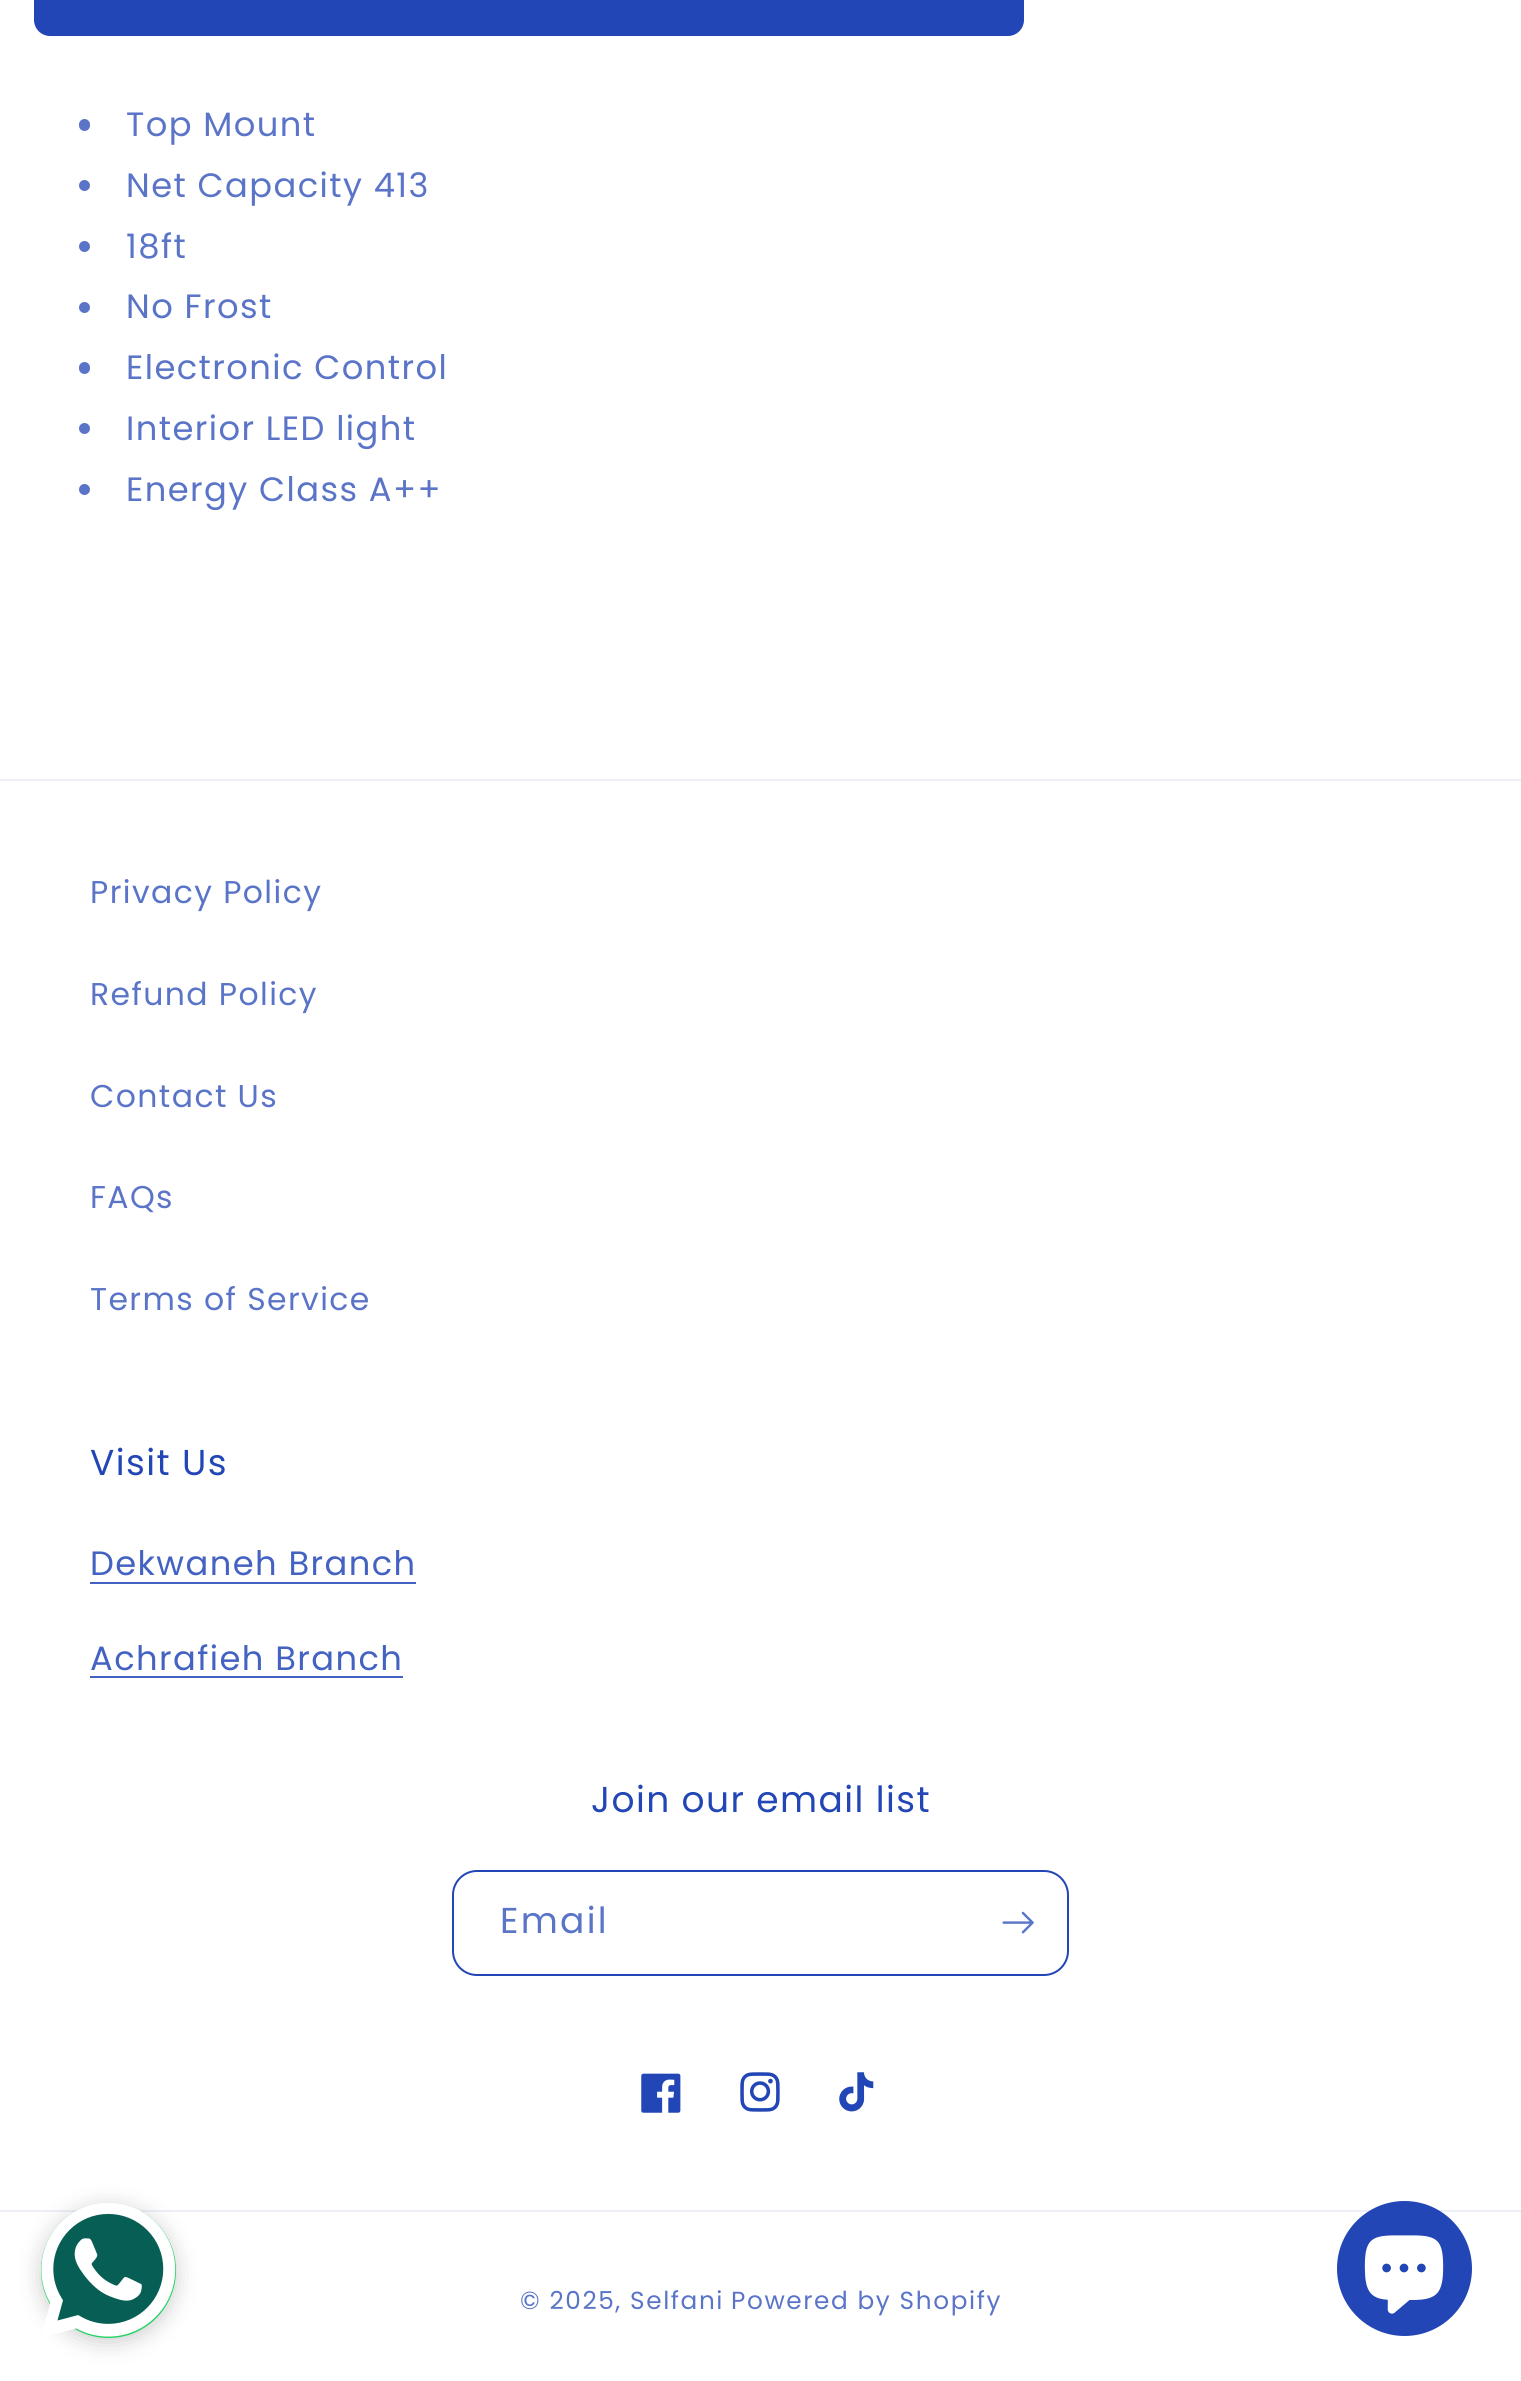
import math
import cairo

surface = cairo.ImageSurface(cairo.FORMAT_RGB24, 1521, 2381)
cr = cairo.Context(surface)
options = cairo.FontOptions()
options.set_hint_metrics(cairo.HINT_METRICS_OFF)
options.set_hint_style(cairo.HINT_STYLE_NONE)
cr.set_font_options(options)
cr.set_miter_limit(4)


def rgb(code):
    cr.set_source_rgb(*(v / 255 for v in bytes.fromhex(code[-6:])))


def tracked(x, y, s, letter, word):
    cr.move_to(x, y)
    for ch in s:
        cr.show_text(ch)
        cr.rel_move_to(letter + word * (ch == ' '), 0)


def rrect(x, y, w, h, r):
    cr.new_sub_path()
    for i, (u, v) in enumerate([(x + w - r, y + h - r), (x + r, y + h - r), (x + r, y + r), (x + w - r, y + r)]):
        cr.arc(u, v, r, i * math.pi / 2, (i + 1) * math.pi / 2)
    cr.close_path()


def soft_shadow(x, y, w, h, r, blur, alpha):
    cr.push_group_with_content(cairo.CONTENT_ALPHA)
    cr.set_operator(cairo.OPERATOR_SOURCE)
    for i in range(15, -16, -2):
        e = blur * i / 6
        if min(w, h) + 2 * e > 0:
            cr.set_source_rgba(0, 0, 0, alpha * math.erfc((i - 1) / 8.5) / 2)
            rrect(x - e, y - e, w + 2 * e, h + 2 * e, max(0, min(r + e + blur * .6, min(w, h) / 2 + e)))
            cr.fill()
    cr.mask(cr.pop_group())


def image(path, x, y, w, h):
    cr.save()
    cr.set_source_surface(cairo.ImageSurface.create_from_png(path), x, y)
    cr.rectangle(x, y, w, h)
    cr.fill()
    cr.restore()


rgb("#ffffff")
cr.paint()
rgb("#2346b6")
rrect(35, -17, 988, 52, 15)
cr.fill_preserve()
cr.stroke()
rgb("#5a74c8")
rrect(79, 119, 11, 12, 5.5)
cr.fill()
cr.arc(84.5, 185.5, 5.5, 0, 2 * math.pi)
cr.fill()
cr.arc(84.5, 246.5, 5.5, 0, 2 * math.pi)
cr.fill()
cr.arc(84.5, 307.5, 5.5, 0, 2 * math.pi)
cr.fill()
rrect(79, 362, 11, 12, 5.5)
cr.fill()
cr.arc(84.5, 428.5, 5.5, 0, 2 * math.pi)
cr.fill()
cr.arc(84.5, 489.5, 5.5, 0, 2 * math.pi)
cr.fill()
for x, y, w, h, color in [
    (0, 779, 1521, 2, "#edf0f9"),
    (90, 1582, 326, 2, "#4462c1"),
    (90, 1676, 313, 2, "#4462c1"),
]:
    rgb(color)
    cr.rectangle(x, y, w, h)
    cr.fill()
rrect(453, 1871, 615, 104, 24)
rgb("#2346b6")
cr.stroke()
image("img/1.png", 1002, 1911, 32, 23)
image("img/2.png", 641, 2073, 40, 40)
image("img/3.png", 740, 2072, 40, 40)
image("img/4.png", 839, 2072, 35, 40)
rgb("#edf0f9")
cr.rectangle(0, 2210, 1521, 2)
cr.fill()
rgb("#000000")
soft_shadow(41, 2207, 135, 135, 67.5, 11, 0.2)
rgb("#25d366")
cr.arc(108.5, 2270.5, 67.5, 0, 2 * math.pi)
cr.fill()
image("img/5.png", 41, 2203, 135, 134)
rgb("#2346b6")
cr.arc(1404.5, 2268.5, 67.5, 0, 2 * math.pi)
cr.fill()
image("img/6.png", 1364, 2235, 80, 79)
cr.select_font_face("Poppins")
cr.set_font_size(33.75)
rgb("#5a74c8")
for x, y, s in [
    (126, 136, "Top Mount"),
    (126, 197, "Net Capacity 413"),
    (126, 258, "18ft"),
    (126, 318, "No Frost"),
    (126, 379, "Electronic Control"),
    (126, 440, "Interior LED light"),
    (126, 501, "Energy Class A++"),
]:
    tracked(x, y, s, 1.4, 0)
cr.set_font_size(31.5)
for x, y, s in [
    (90, 903, "Privacy Policy"),
    (90, 1005, "Refund Policy"),
    (90, 1107, "Contact Us"),
    (90, 1208, "FAQs"),
    (90, 1310, "Terms of Service"),
]:
    tracked(x, y, s, 1.4, 0)
cr.set_font_size(36)
rgb("#2346b6")
tracked(90, 1475, "Visit Us", 1.4, 0)
cr.set_font_size(33.75)
rgb("#4462c1")
tracked(90, 1575, "Dekwaneh Branch", 1.4, 0)
tracked(90, 1670, "Achrafieh Branch", 1.4, 0)
cr.set_font_size(36)
rgb("#2346b6")
tracked(591, 1812, "Join our email list", 1.4, 0)
rgb("#5a74c8")
tracked(500, 1933, "Email", 2.25, 0)
cr.set_font_size(24.75)
tracked(520, 2309, "© 2025, Selfani", 1.6, 0)
tracked(731, 2309, "Powered by Shopify", 1.6, 0)
surface.write_to_png("page.png")
